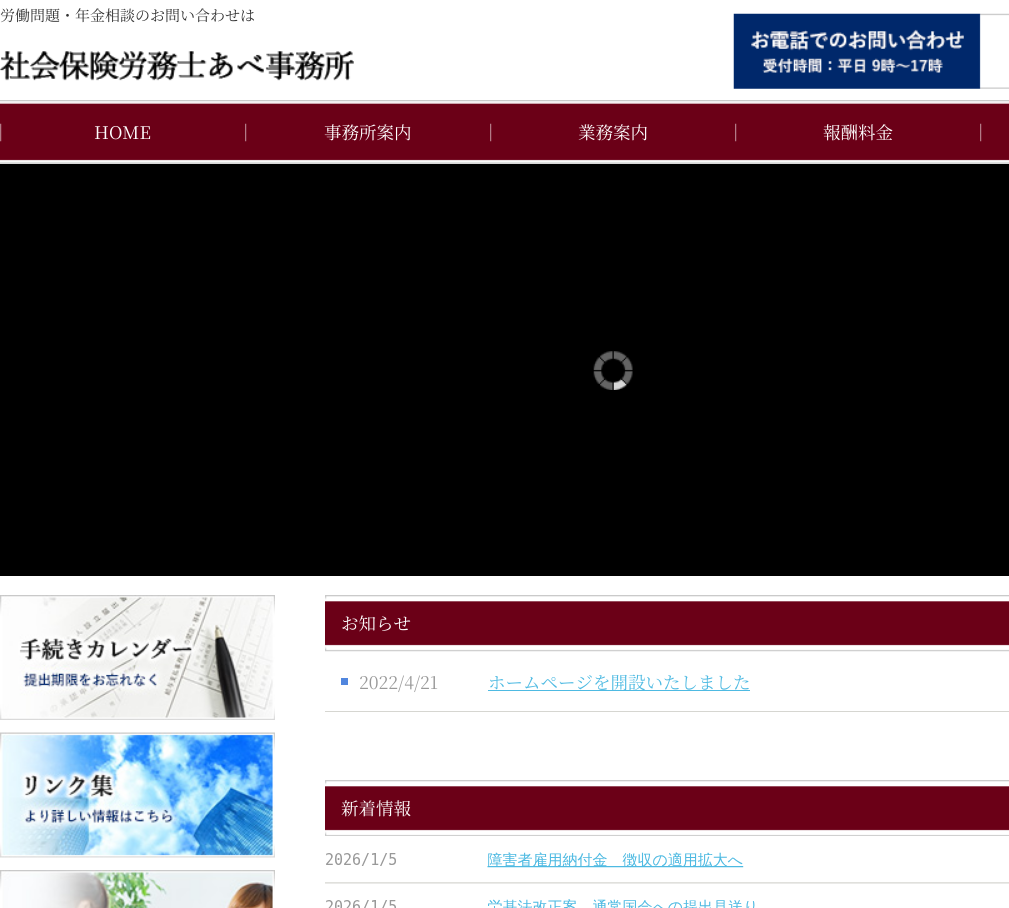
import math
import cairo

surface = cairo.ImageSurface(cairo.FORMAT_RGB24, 1009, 908)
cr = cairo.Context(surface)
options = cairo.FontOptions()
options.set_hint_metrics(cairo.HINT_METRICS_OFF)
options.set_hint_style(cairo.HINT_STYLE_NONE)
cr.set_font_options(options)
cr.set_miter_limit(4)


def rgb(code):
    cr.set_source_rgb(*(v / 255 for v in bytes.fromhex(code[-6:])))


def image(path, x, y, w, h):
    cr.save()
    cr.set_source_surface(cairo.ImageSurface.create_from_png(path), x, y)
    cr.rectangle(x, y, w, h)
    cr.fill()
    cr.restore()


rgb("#ffffff")
cr.paint()
image("img/1.png", 0, 100, 1009, 64)
image("img/2.png", 733, 13, 276, 76)
image("img/3.png", 0, 51, 354, 30)
image("img/4.png", 0, 123, 2, 19)
image("img/4.png", 245, 123, 2, 19)
image("img/4.png", 490, 123, 2, 19)
image("img/4.png", 735, 123, 2, 19)
image("img/4.png", 980, 123, 2, 19)
rgb("#000000")
cr.rectangle(0, 164, 1009, 412)
cr.fill()
image("img/5.png", 593, 351, 40, 39)
image("img/6.png", 0, 595, 275, 125)
image("img/7.png", 0, 732, 275, 126)
image("img/8.png", 0, 870, 275, 38)
image("img/9.png", 325, 595, 684, 57)
for x, y, w, h, color in [
    (341, 678, 7, 7, "#5186de"),
    (325, 711, 684, 1, "#d6d6d1"),
    (488, 690, 262, 1, "#4ebae2"),
]:
    rgb(color)
    cr.rectangle(x, y, w, h)
    cr.fill()
image("img/10.png", 325, 780, 684, 56)
image("img/11.png", 325, 836, 684, 72)
cr.select_font_face("Noto Serif JP")
cr.set_font_size(15)
rgb("#333333")
cr.move_to(0, 21)
cr.show_text("労働問題・年金相談のお問い合わせは")
cr.set_font_size(17.5)
rgb("#ffffff")
for x, y, s in [
    (94, 139, "HOME"),
    (324, 139, "事務所案内"),
    (578, 139, "業務案内"),
    (823, 139, "報酬料金"),
    (341, 630, "お知らせ"),
]:
    cr.move_to(x, y)
    cr.show_text(s)
rgb("#999999")
cr.move_to(359, 689)
cr.show_text("2022/4/21")
rgb("#4ebae2")
cr.move_to(488, 689)
cr.show_text("ホームページを開設いたしました")
rgb("#ffffff")
cr.move_to(341, 815)
cr.show_text("新着情報")
surface.write_to_png("page.png")
